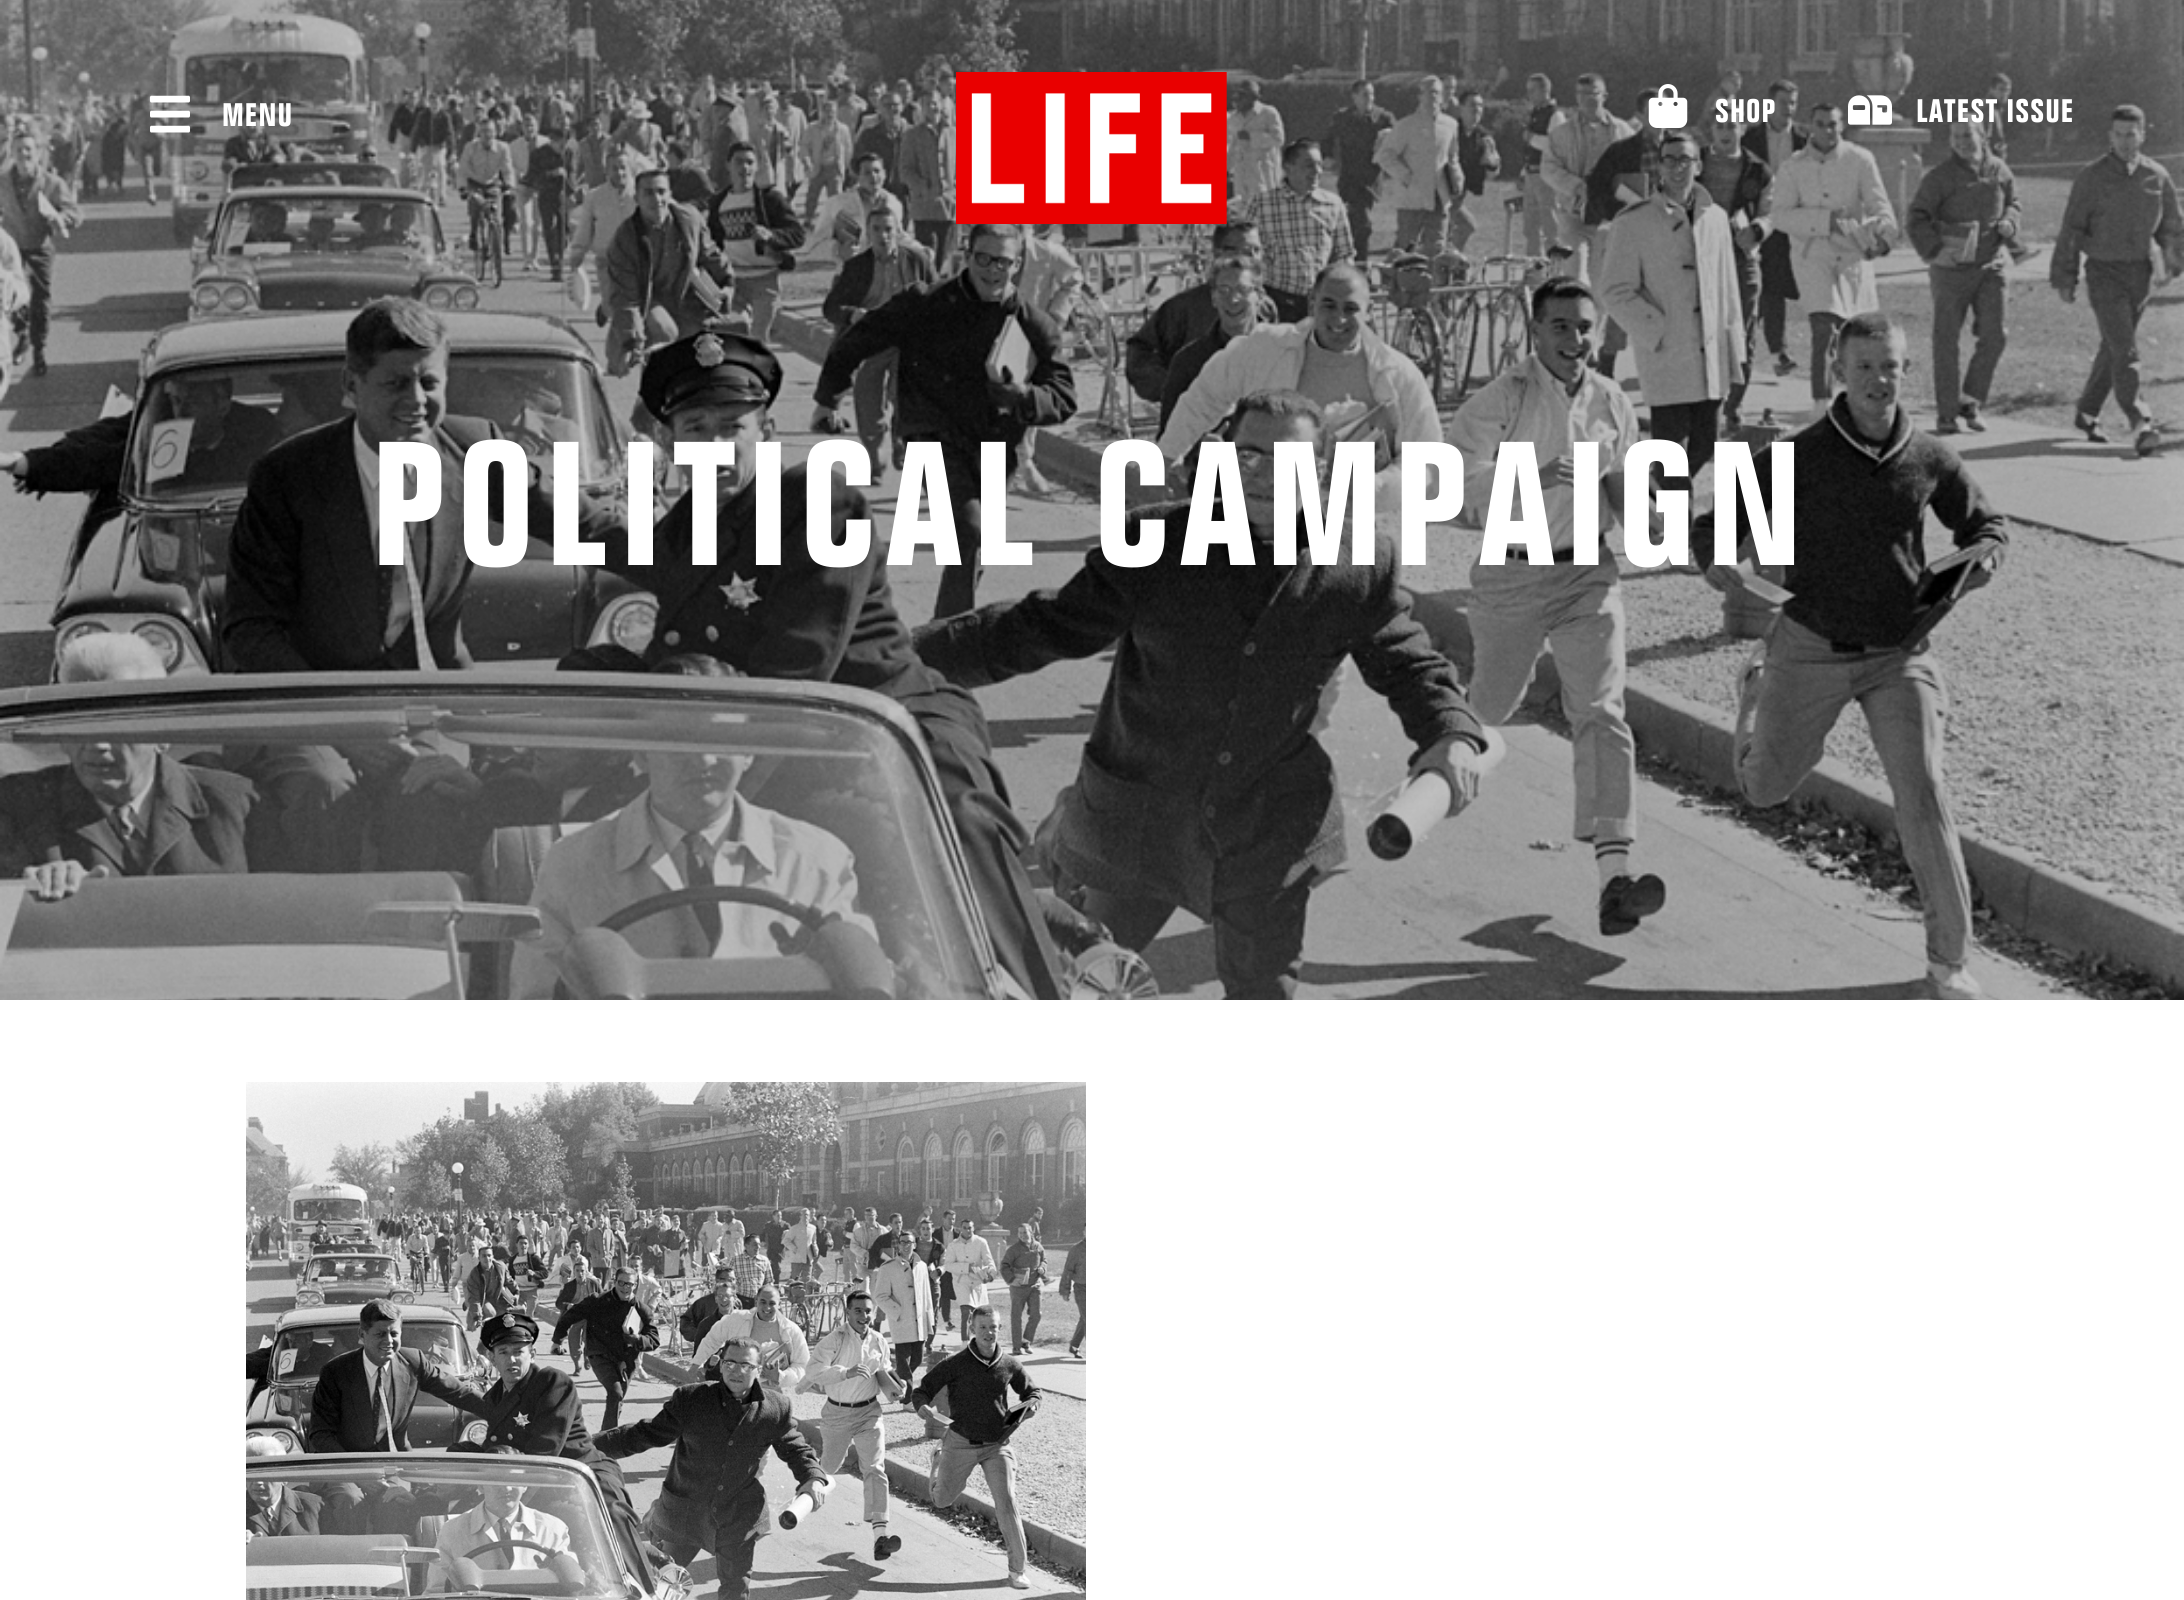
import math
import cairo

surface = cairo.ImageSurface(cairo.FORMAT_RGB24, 2184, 1600)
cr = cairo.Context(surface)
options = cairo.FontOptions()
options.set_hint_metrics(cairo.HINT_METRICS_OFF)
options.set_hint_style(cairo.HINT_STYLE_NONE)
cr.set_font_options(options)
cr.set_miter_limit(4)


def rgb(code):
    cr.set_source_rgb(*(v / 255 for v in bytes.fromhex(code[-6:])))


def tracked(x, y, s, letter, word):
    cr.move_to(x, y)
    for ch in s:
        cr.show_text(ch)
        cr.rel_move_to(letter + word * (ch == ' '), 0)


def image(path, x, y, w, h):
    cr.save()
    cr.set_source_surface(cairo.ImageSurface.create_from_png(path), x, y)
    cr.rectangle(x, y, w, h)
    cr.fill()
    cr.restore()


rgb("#ffffff")
cr.paint()
image("img/5.png", 0, 0, 2184, 1000)
image("img/1.png", 150, 95, 40, 38)
rgb("#e90000")
cr.rectangle(956, 72, 15, 152)
cr.fill()
image("img/2.png", 971, 72, 256, 152)
image("img/3.png", 1648, 84, 40, 44)
image("img/4.png", 1848, 95, 44, 30)
image("img/6.png", 246, 1082, 840, 518)
cr.select_font_face("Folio", cairo.FONT_SLANT_NORMAL, cairo.FONT_WEIGHT_BOLD)
cr.set_font_size(32)
rgb("#ffffff")
for x, y, s in [
    (222, 126, "MENU"),
    (1715, 122, "SHOP"),
    (1916, 122, "LATEST ISSUE"),
]:
    tracked(x, y, s, 1, 0)
cr.set_font_size(172.75)
tracked(371, 565, "POLITICAL CAMPAIGN", 10, 0)
surface.write_to_png("page.png")
